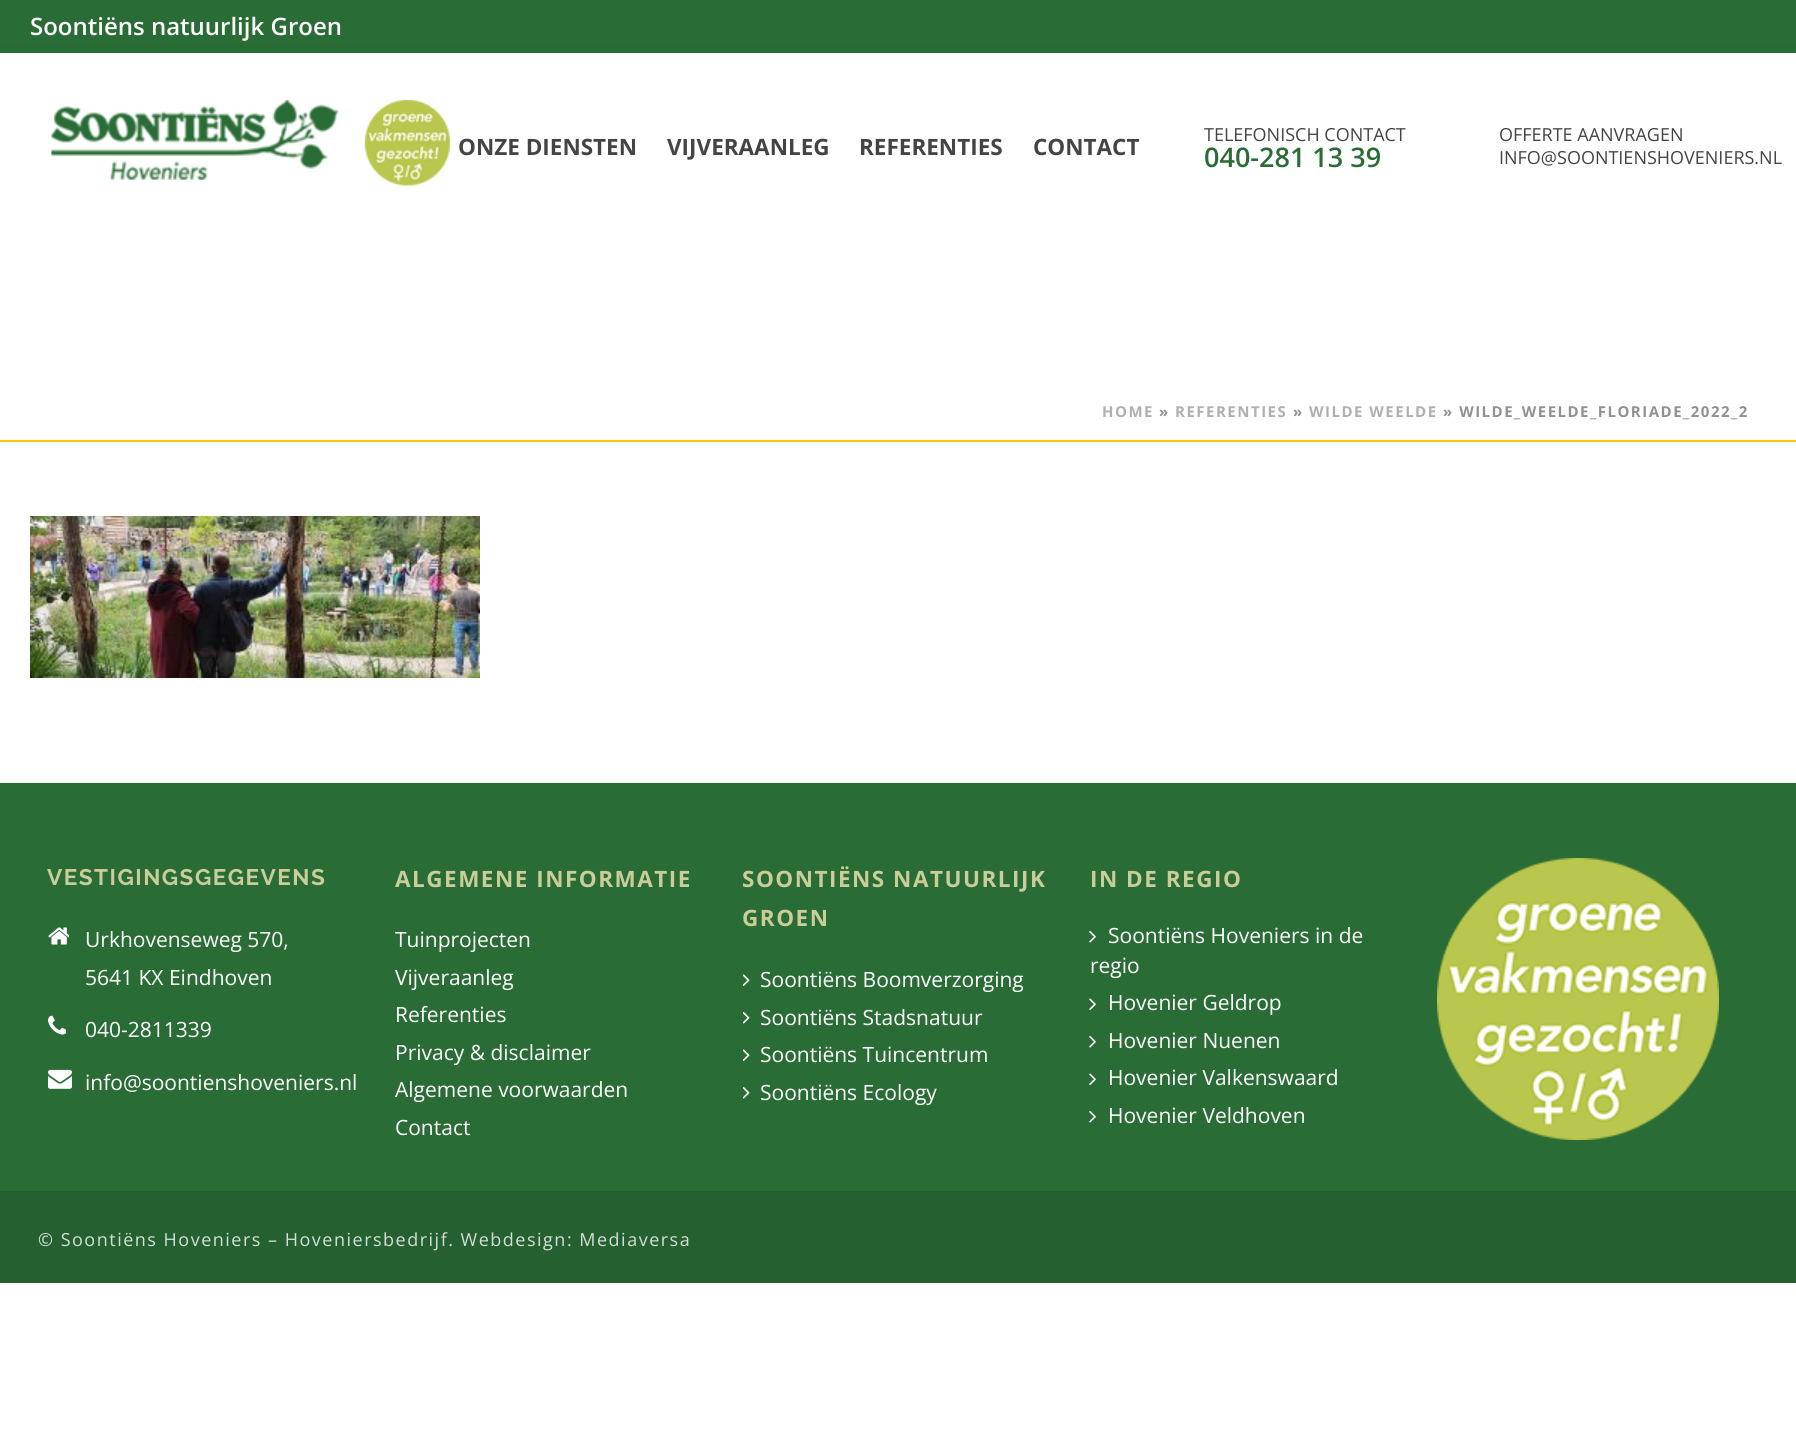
import math
import cairo

surface = cairo.ImageSurface(cairo.FORMAT_RGB24, 1796, 1454)
cr = cairo.Context(surface)
options = cairo.FontOptions()
options.set_hint_metrics(cairo.HINT_METRICS_OFF)
options.set_hint_style(cairo.HINT_STYLE_NONE)
cr.set_font_options(options)
cr.set_miter_limit(4)


def rgb(code):
    cr.set_source_rgb(*(v / 255 for v in bytes.fromhex(code[-6:])))


def tracked(x, y, s, letter, word):
    cr.move_to(x, y)
    for ch in s:
        cr.show_text(ch)
        cr.rel_move_to(letter + word * (ch == ' '), 0)


def image(path, x, y, w, h):
    cr.save()
    cr.set_source_surface(cairo.ImageSurface.create_from_png(path), x, y)
    cr.rectangle(x, y, w, h)
    cr.fill()
    cr.restore()


rgb("#ffffff")
cr.paint()
for x, y, w, h, color in [
    (0, 440, 1796, 2, "#fdc502"),
    (0, 0, 1796, 45, "#296c35"),
    (0, 45, 1796, 8, "#276c35"),
]:
    rgb(color)
    cr.rectangle(x, y, w, h)
    cr.fill()
image("img/1.png", 51, 99, 399, 87)
image("img/2.png", 30, 516, 450, 162)
rgb("#296c35")
cr.rectangle(0, 783, 1796, 408)
cr.fill()
image("img/3.png", 48, 927, 21, 18)
image("img/4.png", 48, 1015, 18, 20)
image("img/5.png", 48, 1069, 24, 20)
image("img/6.png", 743, 974, 7, 12)
image("img/7.png", 743, 1012, 7, 12)
image("img/6.png", 743, 1049, 7, 12)
image("img/7.png", 743, 1087, 7, 12)
image("img/8.png", 1089, 931, 7, 12)
image("img/9.png", 1089, 998, 7, 12)
image("img/8.png", 1089, 1036, 7, 12)
image("img/9.png", 1089, 1073, 7, 12)
image("img/8.png", 1089, 1111, 7, 12)
image("img/10.png", 1437, 858, 282, 282)
rgb("#256130")
cr.rectangle(0, 1191, 1796, 92)
cr.fill()
cr.select_font_face("Open Sans SemiBold")
cr.set_font_size(24)
rgb("#ffffff")
cr.move_to(30, 35)
cr.show_text("Soontiëns natuurlijk Groen")
cr.select_font_face("Open Sans", cairo.FONT_SLANT_NORMAL, cairo.FONT_WEIGHT_BOLD)
cr.set_font_size(22.5)
rgb("#444444")
for x, y, s in [
    (458, 155, "ONZE DIENSTEN"),
    (667, 155, "VIJVERAANLEG"),
    (859, 155, "REFERENTIES"),
    (1033, 155, "CONTACT"),
]:
    cr.move_to(x, y)
    cr.show_text(s)
cr.select_font_face("Open Sans")
cr.set_font_size(18)
cr.move_to(1204, 141)
cr.show_text("TELEFONISCH CONTACT")
cr.select_font_face("Open Sans SemiBold")
cr.set_font_size(27)
rgb("#296c35")
cr.move_to(1204, 167)
cr.show_text("040-281 13 39")
cr.select_font_face("Open Sans")
cr.set_font_size(18)
rgb("#444444")
cr.move_to(1499, 141)
cr.show_text("OFFERTE AANVRAGEN")
cr.move_to(1499, 164)
cr.show_text("INFO@SOONTIENSHOVENIERS.NL")
cr.select_font_face("Open Sans", cairo.FONT_SLANT_NORMAL, cairo.FONT_WEIGHT_BOLD)
cr.set_font_size(15)
rgb("#afafaf")
tracked(1102, 417, "HOME", 1.5, 0)
rgb("#919191")
tracked(1159, 417, "»", 1.5, 0)
rgb("#afafaf")
tracked(1175, 417, "REFERENTIES", 1.5, 0)
rgb("#919191")
tracked(1293, 417, "»", 1.5, 0)
rgb("#afafaf")
tracked(1309, 417, "WILDE WEELDE", 1.5, 0)
rgb("#919191")
tracked(1443, 417, "» WILDE_WEELDE_FLORIADE_2022_2", 1.5, 0)
cr.select_font_face("Raleway", cairo.FONT_SLANT_NORMAL, cairo.FONT_WEIGHT_BOLD)
cr.set_font_size(22.5)
rgb("#cacd98")
tracked(47, 885, "VESTIGINGSGEGEVENS", 1.5, 0)
cr.select_font_face("Open Sans")
cr.set_font_size(21)
rgb("#ffffff")
for x, y, s in [
    (85, 947, "Urkhovenseweg 570,"),
    (85, 985, "5641 KX Eindhoven"),
    (85, 1037, "040-2811339"),
    (85, 1090, "info@soontienshoveniers.nl"),
]:
    cr.move_to(x, y)
    cr.show_text(s)
cr.select_font_face("Open Sans", cairo.FONT_SLANT_NORMAL, cairo.FONT_WEIGHT_BOLD)
cr.set_font_size(22.5)
rgb("#cacd98")
tracked(395, 887, "ALGEMENE INFORMATIE", 1.5, 0)
cr.select_font_face("Open Sans")
cr.set_font_size(21)
rgb("#ffffff")
for x, y, s in [
    (395, 947, "Tuinprojecten"),
    (395, 985, "Vijveraanleg"),
    (395, 1022, "Referenties"),
    (395, 1060, "Privacy & disclaimer"),
    (395, 1097, "Algemene voorwaarden"),
    (395, 1135, "Contact"),
]:
    cr.move_to(x, y)
    cr.show_text(s)
cr.select_font_face("Open Sans", cairo.FONT_SLANT_NORMAL, cairo.FONT_WEIGHT_BOLD)
cr.set_font_size(22.5)
rgb("#cacd98")
tracked(742, 887, "SOONTIËNS NATUURLIJK", 1.5, 0)
tracked(742, 926, "GROEN", 1.5, 0)
cr.select_font_face("Open Sans")
cr.set_font_size(21)
rgb("#ffffff")
for x, y, s in [
    (760, 987, "Soontiëns Boomverzorging"),
    (760, 1025, "Soontiëns Stadsnatuur"),
    (760, 1062, "Soontiëns Tuincentrum"),
    (760, 1100, "Soontiëns Ecology"),
]:
    cr.move_to(x, y)
    cr.show_text(s)
cr.select_font_face("Open Sans", cairo.FONT_SLANT_NORMAL, cairo.FONT_WEIGHT_BOLD)
cr.set_font_size(22.5)
rgb("#cacd98")
tracked(1090, 887, "IN DE REGIO", 1.5, 0)
cr.select_font_face("Open Sans")
cr.set_font_size(21)
rgb("#ffffff")
for x, y, s in [
    (1108, 943, "Soontiëns Hoveniers in de"),
    (1090, 973, "regio"),
    (1108, 1010, "Hovenier Geldrop"),
    (1108, 1048, "Hovenier Nuenen"),
    (1108, 1085, "Hovenier Valkenswaard"),
    (1108, 1123, "Hovenier Veldhoven"),
]:
    cr.move_to(x, y)
    cr.show_text(s)
cr.set_font_size(18)
rgb("#d3dfd6")
tracked(38, 1246, "© Soontiëns Hoveniers – Hoveniersbedrijf. Webdesign: Mediaversa", 1.5, 0)
surface.write_to_png("page.png")
